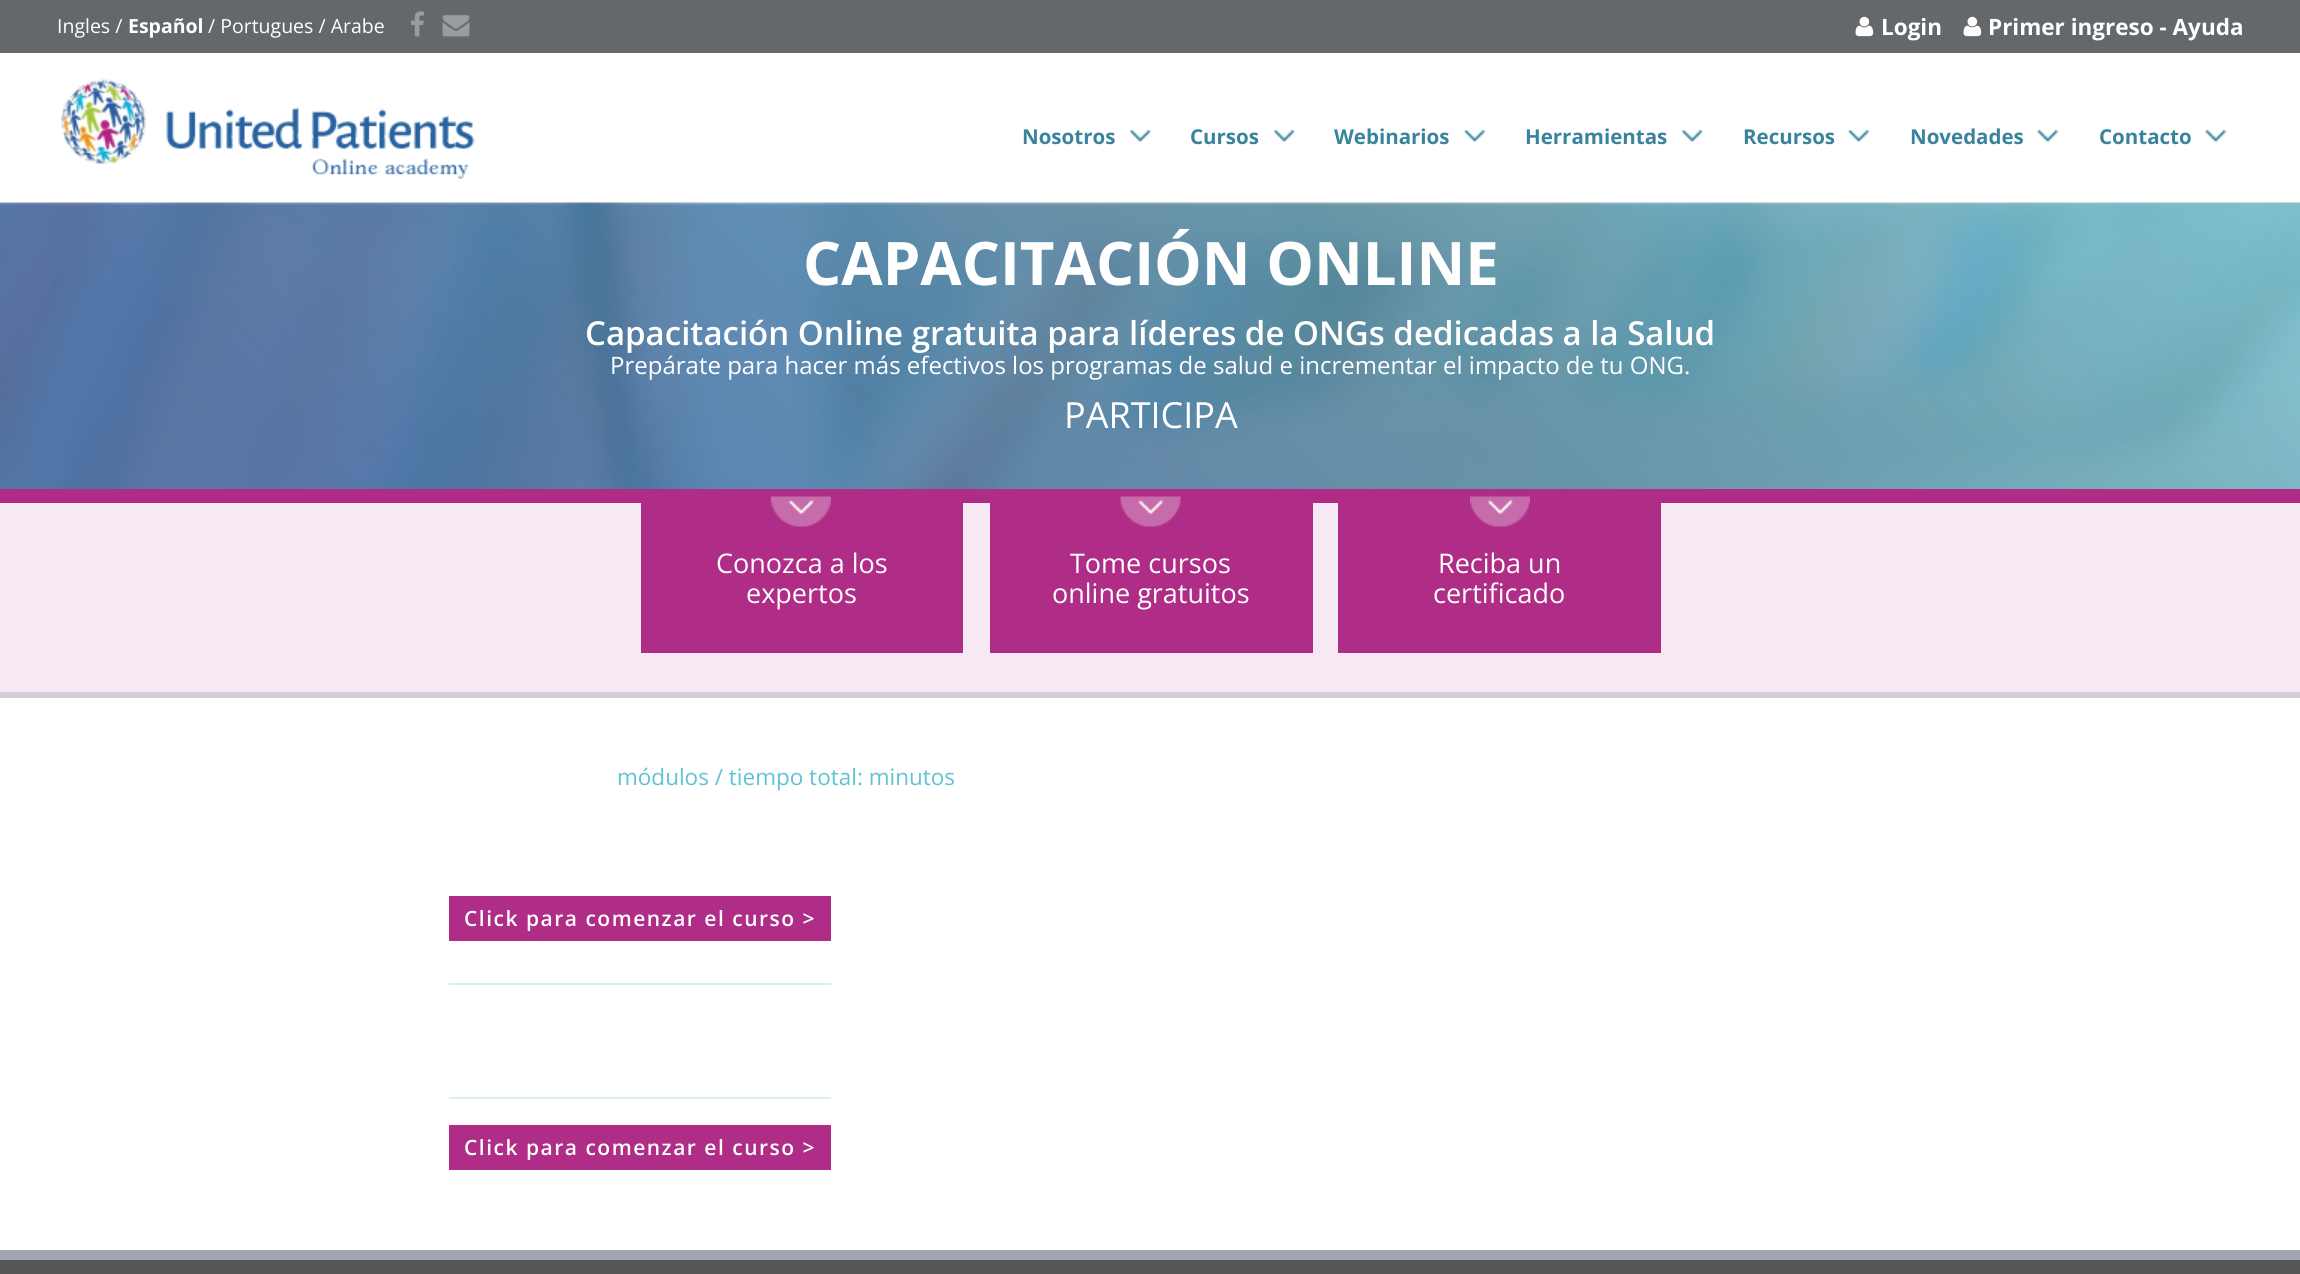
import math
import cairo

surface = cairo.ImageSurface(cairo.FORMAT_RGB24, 2300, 1274)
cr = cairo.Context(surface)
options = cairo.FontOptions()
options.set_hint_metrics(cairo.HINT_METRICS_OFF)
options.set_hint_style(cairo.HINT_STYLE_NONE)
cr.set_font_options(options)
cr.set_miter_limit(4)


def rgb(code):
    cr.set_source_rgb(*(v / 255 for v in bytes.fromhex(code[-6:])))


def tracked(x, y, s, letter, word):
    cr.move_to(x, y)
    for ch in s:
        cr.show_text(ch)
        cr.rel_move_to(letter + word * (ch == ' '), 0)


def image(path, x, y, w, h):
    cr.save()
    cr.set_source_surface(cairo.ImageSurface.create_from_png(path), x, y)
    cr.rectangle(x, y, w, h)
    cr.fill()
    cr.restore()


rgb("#ffffff")
cr.paint()
rgb("#64686b")
cr.rectangle(0, 0, 2300, 53)
cr.fill()
image("img/1.png", 411, 11, 13, 26)
image("img/2.png", 442, 15, 28, 22)
image("img/3.png", 1855, 16, 19, 21)
image("img/3.png", 1963, 16, 19, 21)
image("img/4.png", 61, 79, 414, 100)
image("img/5.png", 1129, 129, 22, 14)
image("img/6.png", 1273, 129, 22, 14)
image("img/7.png", 1464, 129, 22, 14)
image("img/8.png", 1681, 129, 22, 14)
image("img/7.png", 1848, 129, 22, 14)
image("img/9.png", 2037, 129, 22, 14)
image("img/10.png", 2205, 129, 22, 14)
image("img/11.png", 0, 202, 2300, 287)
for x, y, w, h, color in [
    (0, 503, 2300, 189, "#f7e9f3"),
    (0, 489, 2300, 14, "#af2d87"),
    (641, 503, 322, 150, "#af2d87"),
]:
    rgb(color)
    cr.rectangle(x, y, w, h)
    cr.fill()
image("img/12.png", 771, 496, 60, 31)
cr.rectangle(990, 503, 323, 150)
cr.fill()
image("img/13.png", 1120, 496, 61, 31)
cr.rectangle(1338, 503, 323, 150)
cr.fill()
image("img/14.png", 1470, 496, 60, 31)
for x, y, w, h, color in [
    (0, 692, 2300, 6, "#d1d0d7"),
    (449, 896, 382, 45, "#af2d87"),
    (449, 983, 382, 2, "#d7f0f5"),
    (449, 1097, 382, 2, "#d7f0f5"),
    (449, 1125, 382, 45, "#af2d87"),
    (0, 1260, 2300, 14, "#575656"),
    (0, 1250, 2300, 10, "#a3a4b1"),
]:
    rgb(color)
    cr.rectangle(x, y, w, h)
    cr.fill()
cr.select_font_face("Open Sans")
cr.set_font_size(19.5)
rgb("#ffffff")
cr.move_to(57, 33)
cr.show_text("Ingles /")
cr.select_font_face("Open Sans", cairo.FONT_SLANT_NORMAL, cairo.FONT_WEIGHT_BOLD)
cr.move_to(128, 33)
cr.show_text("Español")
cr.select_font_face("Open Sans")
cr.move_to(208, 33)
cr.show_text("/ Portugues / Arabe")
cr.select_font_face("Open Sans", cairo.FONT_SLANT_NORMAL, cairo.FONT_WEIGHT_BOLD)
cr.set_font_size(22.5)
cr.move_to(1881, 35)
cr.show_text("Login")
cr.move_to(1988, 35)
cr.show_text("Primer ingreso - Ayuda")
cr.set_font_size(20.5)
rgb("#39839d")
for x, y, s in [
    (1022, 144, "Nosotros"),
    (1190, 144, "Cursos"),
    (1334, 144, "Webinarios"),
    (1525, 144, "Herramientas"),
    (1743, 144, "Recursos"),
    (1910, 144, "Novedades"),
    (2099, 144, "Contacto"),
]:
    cr.move_to(x, y)
    cr.show_text(s)
cr.set_font_size(60)
rgb("#ffffff")
cr.move_to(803, 285)
cr.show_text("CAPACITACIÓN ONLINE")
cr.select_font_face("Open Sans SemiBold")
cr.set_font_size(33)
cr.move_to(585, 345)
cr.show_text("Capacitación Online gratuita para líderes de ONGs dedicadas a la Salud")
cr.select_font_face("Open Sans")
cr.set_font_size(24)
cr.move_to(610, 374)
cr.show_text("Prepárate para hacer más efectivos los programas de salud e incrementar el impacto de tu ONG.")
cr.set_font_size(36)
cr.move_to(1064, 428)
cr.show_text("PARTICIPA")
cr.set_font_size(27)
for x, y, s in [
    (716, 573, "Conozca a los"),
    (746, 603, "expertos"),
    (1070, 573, "Tome cursos"),
    (1052, 603, "online gratuitos"),
    (1438, 573, "Reciba un"),
    (1433, 603, "certificado"),
]:
    cr.move_to(x, y)
    cr.show_text(s)
cr.set_font_size(22.5)
rgb("#61c2d6")
cr.move_to(617, 785)
cr.show_text("módulos / tiempo total: minutos")
cr.select_font_face("Open Sans SemiBold")
cr.set_font_size(21)
rgb("#ffffff")
tracked(464, 926, "Click para comenzar el curso >", 1.5, 0)
tracked(464, 1155, "Click para comenzar el curso >", 1.5, 0)
surface.write_to_png("page.png")
